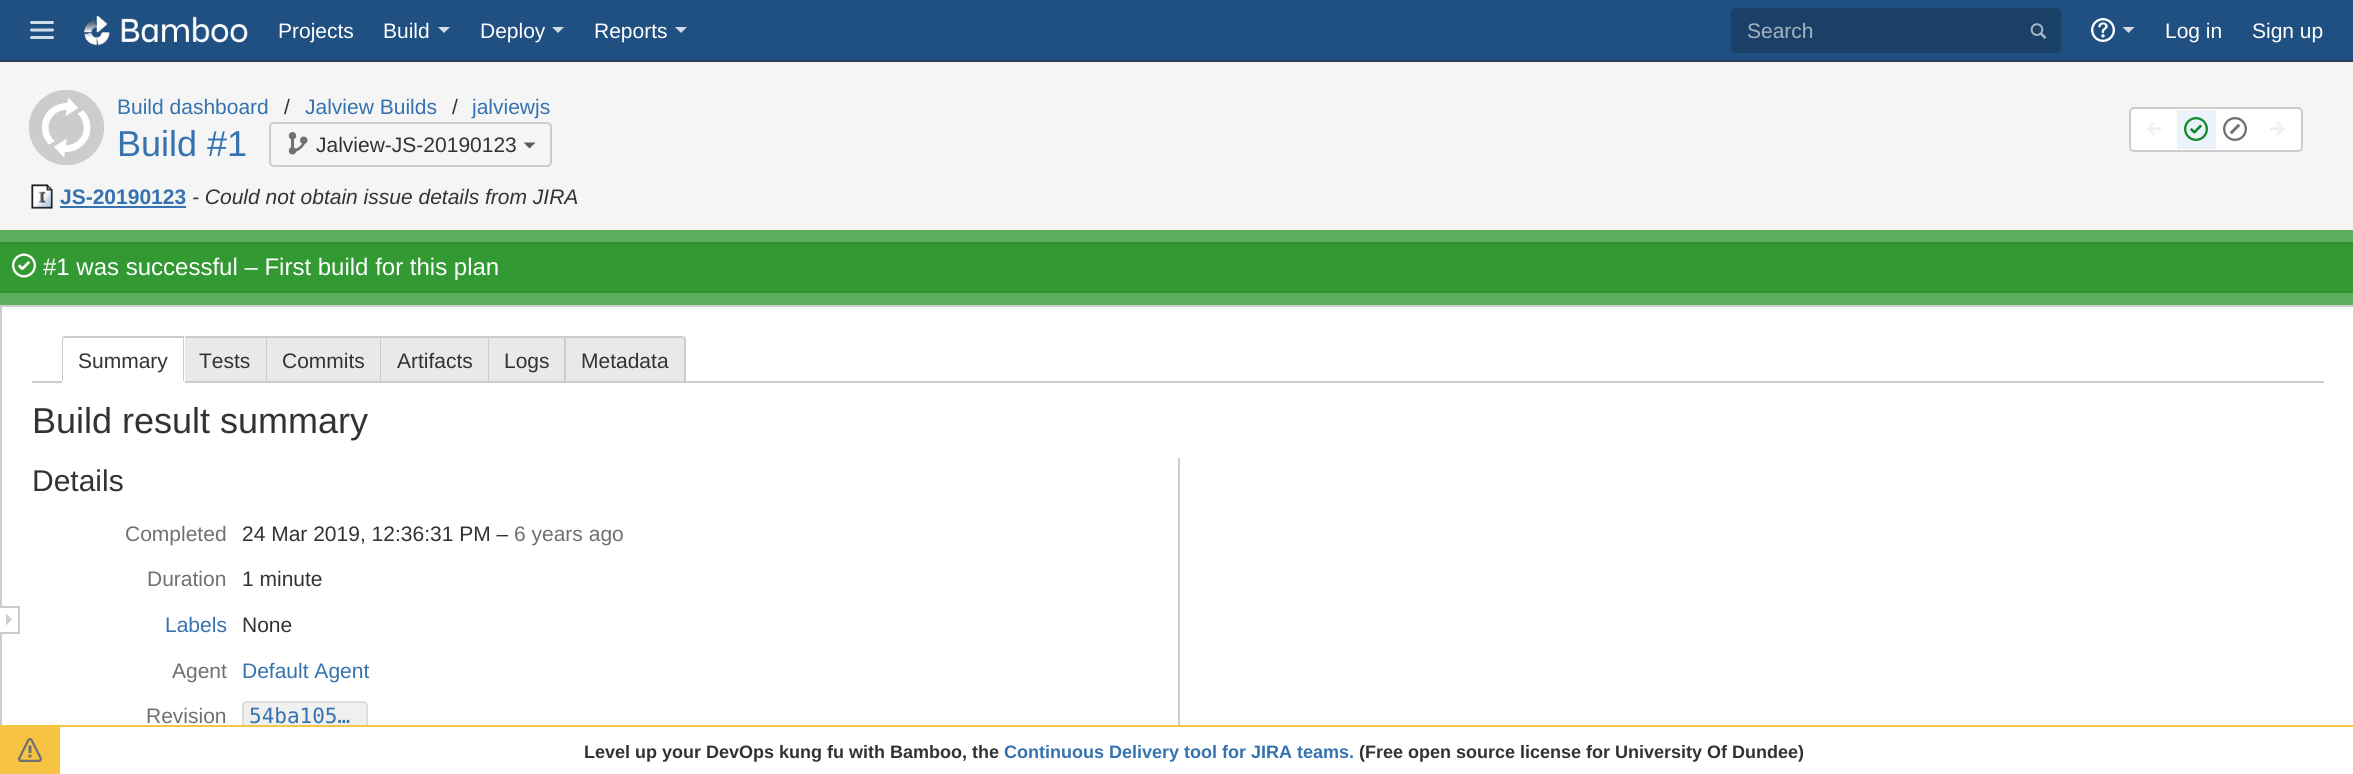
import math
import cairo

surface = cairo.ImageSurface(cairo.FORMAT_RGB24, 2353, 774)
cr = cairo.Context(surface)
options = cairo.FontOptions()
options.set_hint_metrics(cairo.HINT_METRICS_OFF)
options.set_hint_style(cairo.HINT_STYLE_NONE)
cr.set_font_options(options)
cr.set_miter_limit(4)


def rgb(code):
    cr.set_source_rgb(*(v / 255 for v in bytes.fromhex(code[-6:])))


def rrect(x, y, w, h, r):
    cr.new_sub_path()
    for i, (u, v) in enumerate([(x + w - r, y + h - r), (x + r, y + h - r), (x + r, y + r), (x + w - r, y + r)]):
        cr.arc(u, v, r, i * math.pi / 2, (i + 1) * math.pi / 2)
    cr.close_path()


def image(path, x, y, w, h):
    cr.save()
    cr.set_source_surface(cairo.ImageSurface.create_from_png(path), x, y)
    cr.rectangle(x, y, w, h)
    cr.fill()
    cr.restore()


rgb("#f5f5f5")
cr.paint()
rgb("#205081")
cr.rectangle(0, 0, 2353, 60)
cr.fill()
rgb("#2e3d54")
cr.rectangle(0, 60, 2353, 2)
cr.fill()
image("img/1.png", 30, 21, 24, 18)
image("img/2.png", 84, 15, 164, 30)
rgb("#d2dce6")
cr.new_path()
cr.move_to(438, 27)
cr.line_to(450, 27)
cr.line_to(444, 33)
cr.close_path()
cr.fill()
cr.new_path()
cr.move_to(552, 27)
cr.line_to(564, 27)
cr.line_to(558, 33)
cr.close_path()
cr.fill()
cr.new_path()
cr.move_to(675, 27)
cr.line_to(687, 27)
cr.line_to(681, 33)
cr.close_path()
cr.fill()
rgb("#1a4067")
rrect(1731, 8, 330, 45, 5)
cr.fill()
image("img/3.png", 2030, 23, 17, 16)
image("img/4.png", 2091, 18, 24, 24)
rgb("#d2dce6")
cr.new_path()
cr.move_to(2122.5, 27)
cr.line_to(2134.5, 27)
cr.line_to(2128.5, 33)
cr.close_path()
cr.fill()
cr.arc(66.5, 127.5, 36.5, 0, 2 * math.pi)
rgb("#cccccc")
cr.stroke()
image("img/5.png", 31, 92, 71, 71)
cr.arc(66.5, 127.5, 36.5, 0, 2 * math.pi)
cr.stroke()
rrect(270, 123, 281, 43, 4)
cr.stroke()
image("img/6.png", 288, 132, 20, 23)
rgb("#5a5a5a")
cr.new_path()
cr.move_to(523.5, 142.5)
cr.line_to(535.5, 142.5)
cr.line_to(529.5, 148.5)
cr.close_path()
cr.fill()
rgb("#ffffff")
rrect(2130, 108, 172, 43, 4)
cr.fill_preserve()
rgb("#cccccc")
cr.stroke()
image("img/7.png", 2147, 122, 15, 14)
rgb("#ebf2f9")
cr.rectangle(2177, 110, 39, 39)
cr.fill()
image("img/8.png", 2184, 117, 24, 24)
image("img/9.png", 2223, 117, 24, 24)
image("img/10.png", 2270, 121, 15, 15)
image("img/11.png", 31, 184, 22, 25)
for x, y, w, h, color in [
    (60, 206, 126, 2, "#3572b0"),
    (0, 230, 2353, 12, "#5cad5c"),
    (0, 244, 2353, 47, "#339933"),
    (0, 242, 2353, 2, "#309130"),
    (0, 291, 2353, 2, "#309130"),
]:
    rgb(color)
    cr.rectangle(x, y, w, h)
    cr.fill()
image("img/12.png", 12, 253, 24, 25)
for x, y, w, h, color in [
    (0, 293, 2353, 12, "#5cad5c"),
    (2, 307, 2351, 418, "#ffffff"),
    (0, 305, 2353, 2, "#cccccc"),
    (0, 306, 2, 419, "#cccccc"),
    (0, 608, 2, 24, "#ffffff"),
    (0, 606, 20, 2, "#cccccc"),
    (18, 606, 2, 27, "#cccccc"),
    (0, 632, 20, 2, "#cccccc"),
]:
    rgb(color)
    cr.rectangle(x, y, w, h)
    cr.fill()
cr.new_path()
cr.move_to(6, 625.5)
cr.line_to(6, 613.5)
cr.line_to(12, 619.5)
cr.close_path()
cr.fill()
for x, y, w, h, color in [
    (62, 336, 4, 4, "#eeeeee"),
    (32, 381, 2292, 2, "#cccccc"),
    (62, 381, 123, 2, "#ffffff"),
]:
    rgb(color)
    cr.rectangle(x, y, w, h)
    cr.fill()
cr.new_path()
cr.move_to(67, 336)
cr.line_to(185, 336)
cr.line_to(185, 381)
cr.line_to(62, 381)
cr.line_to(62, 341)
cr.curve_to(62, 338, 64, 336, 67, 336)
cr.close_path()
cr.fill()
rgb("#cccccc")
cr.set_fill_rule(cairo.FILL_RULE_EVEN_ODD)
cr.new_path()
cr.move_to(66, 336)
cr.line_to(184, 336)
cr.line_to(184, 381)
cr.line_to(62, 381)
cr.line_to(62, 340)
cr.curve_to(62, 338, 64, 336, 66, 336)
cr.close_path()
cr.move_to(66, 338)
cr.line_to(183, 338)
cr.line_to(183, 381)
cr.line_to(63, 381)
cr.line_to(63, 340)
cr.curve_to(63, 339, 64, 338, 66, 338)
cr.close_path()
cr.fill()
for x, y, w, h, color in [
    (185, 338, 81, 43, "#e9e9e9"),
    (185, 336, 381, 2, "#cccccc"),
    (266, 336, 1, 45, "#cccccc"),
    (267, 338, 113, 43, "#e9e9e9"),
    (380, 336, 1, 45, "#cccccc"),
    (381, 338, 107, 43, "#e9e9e9"),
    (488, 336, 1, 45, "#cccccc"),
    (489, 338, 75, 43, "#e9e9e9"),
    (564, 336, 2, 45, "#cccccc"),
    (681, 336, 5, 4, "#eeeeee"),
]:
    rgb(color)
    cr.rectangle(x, y, w, h)
    cr.fill()
rgb("#e9e9e9")
cr.new_path()
cr.move_to(566, 336)
cr.line_to(681, 336)
cr.curve_to(684, 336, 686, 338, 686, 341)
cr.line_to(686, 381)
cr.line_to(566, 381)
cr.close_path()
cr.fill()
rgb("#cccccc")
cr.new_path()
cr.move_to(566, 336)
cr.line_to(681, 336)
cr.curve_to(683, 336, 686, 338, 686, 340)
cr.line_to(686, 381)
cr.line_to(566, 381)
cr.close_path()
cr.move_to(566, 338)
cr.line_to(681, 338)
cr.curve_to(683, 338, 684, 339, 684, 340)
cr.line_to(684, 381)
cr.line_to(566, 381)
cr.close_path()
cr.fill()
rgb("#f0f0f0")
rrect(243, 702, 124, 28, 4)
cr.fill_preserve()
rgb("#dddddd")
cr.stroke()
for x, y, w, h, color in [
    (1178, 458, 2, 274, "#cccccc"),
    (60, 727, 2293, 47, "#ffffff"),
    (0, 725, 2353, 2, "#f6c342"),
    (0, 727, 60, 47, "#f6c342"),
]:
    rgb(color)
    cr.rectangle(x, y, w, h)
    cr.fill()
image("img/13.png", 18, 738, 24, 24)
cr.select_font_face("Liberation Sans")
cr.set_font_size(21)
rgb("#ffffff")
for x, y, s in [
    (278, 38, "Projects"),
    (383, 38, "Build"),
    (480, 38, "Deploy"),
    (594, 38, "Reports"),
]:
    cr.move_to(x, y)
    cr.show_text(s)
rgb("#a3b3c2")
cr.move_to(1747, 38)
cr.show_text("Search")
rgb("#ffffff")
cr.move_to(2165, 38)
cr.show_text("Log in")
cr.move_to(2252, 38)
cr.show_text("Sign up")
rgb("#3572b0")
cr.move_to(117, 114)
cr.show_text("Build dashboard")
rgb("#333333")
cr.move_to(284, 114)
cr.show_text("/")
rgb("#3572b0")
cr.move_to(305, 114)
cr.show_text("Jalview Builds")
rgb("#333333")
cr.move_to(452, 114)
cr.show_text("/")
rgb("#3572b0")
cr.move_to(472, 114)
cr.show_text("jalviewjs")
cr.set_font_size(36)
cr.move_to(117, 156)
cr.show_text("Build #1")
cr.set_font_size(21)
rgb("#333333")
cr.move_to(316, 152)
cr.show_text("Jalview-JS-20190123")
cr.select_font_face("Liberation Sans", cairo.FONT_SLANT_NORMAL, cairo.FONT_WEIGHT_BOLD)
rgb("#3572b0")
cr.move_to(60, 204)
cr.show_text("JS-20190123")
cr.select_font_face("Liberation Sans", cairo.FONT_SLANT_ITALIC)
rgb("#333333")
cr.move_to(192, 204)
cr.show_text("- Could not obtain issue details from JIRA")
cr.select_font_face("Liberation Sans")
cr.set_font_size(24)
rgb("#ffffff")
cr.move_to(43, 275)
cr.show_text("#1 was successful – First build for this plan")
cr.set_font_size(21)
rgb("#333333")
for x, y, s in [
    (78, 368, "Summary"),
    (199, 368, "Tests"),
    (282, 368, "Commits"),
    (397, 368, "Artifacts"),
    (504, 368, "Logs"),
    (581, 368, "Metadata"),
]:
    cr.move_to(x, y)
    cr.show_text(s)
cr.set_font_size(36)
cr.move_to(32, 433)
cr.show_text("Build result summary")
cr.set_font_size(30)
cr.move_to(32, 491)
cr.show_text("Details")
cr.set_font_size(21)
rgb("#707070")
cr.move_to(125, 541)
cr.show_text("Completed")
rgb("#333333")
cr.move_to(242, 541)
cr.show_text("24 Mar 2019, 12:36:31 PM –")
rgb("#707070")
cr.move_to(514, 541)
cr.show_text("6 years ago")
cr.move_to(147, 586)
cr.show_text("Duration")
rgb("#333333")
cr.move_to(242, 586)
cr.show_text("1 minute")
rgb("#3572b0")
cr.move_to(165, 632)
cr.show_text("Labels")
rgb("#333333")
cr.move_to(242, 632)
cr.show_text("None")
rgb("#707070")
cr.move_to(172, 678)
cr.show_text("Agent")
rgb("#3572b0")
cr.move_to(242, 678)
cr.show_text("Default Agent")
rgb("#707070")
cr.move_to(146, 723)
cr.show_text("Revision")
cr.select_font_face("DejaVu Sans Mono")
rgb("#3572b0")
cr.move_to(249, 723)
cr.show_text("54ba105…")
cr.select_font_face("Liberation Sans", cairo.FONT_SLANT_NORMAL, cairo.FONT_WEIGHT_BOLD)
cr.set_font_size(18)
rgb("#333333")
cr.move_to(584, 758)
cr.show_text("Level up your DevOps kung fu with Bamboo, the")
rgb("#3572b0")
cr.move_to(1004, 758)
cr.show_text("Continuous Delivery tool for JIRA teams.")
rgb("#333333")
cr.move_to(1359, 758)
cr.show_text("(Free open source license for University Of Dundee)")
surface.write_to_png("page.png")
